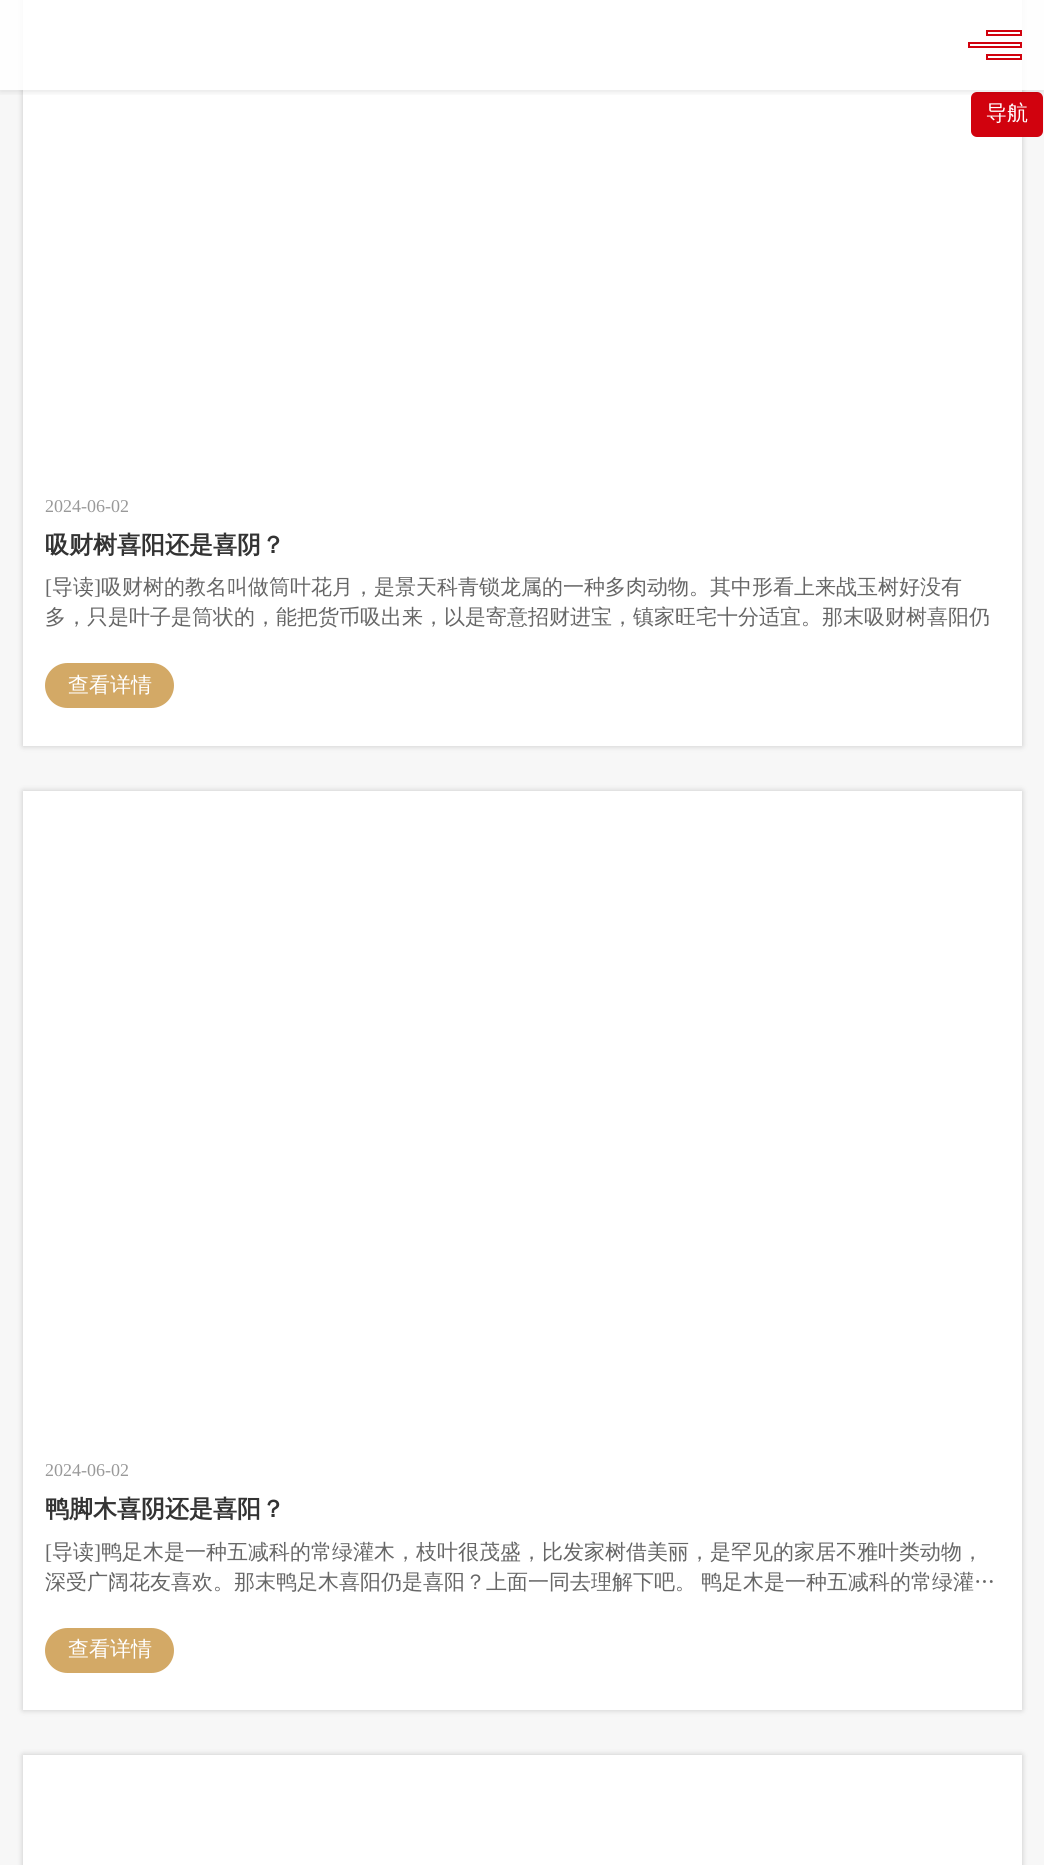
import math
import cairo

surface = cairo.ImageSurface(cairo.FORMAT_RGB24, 1044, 1865)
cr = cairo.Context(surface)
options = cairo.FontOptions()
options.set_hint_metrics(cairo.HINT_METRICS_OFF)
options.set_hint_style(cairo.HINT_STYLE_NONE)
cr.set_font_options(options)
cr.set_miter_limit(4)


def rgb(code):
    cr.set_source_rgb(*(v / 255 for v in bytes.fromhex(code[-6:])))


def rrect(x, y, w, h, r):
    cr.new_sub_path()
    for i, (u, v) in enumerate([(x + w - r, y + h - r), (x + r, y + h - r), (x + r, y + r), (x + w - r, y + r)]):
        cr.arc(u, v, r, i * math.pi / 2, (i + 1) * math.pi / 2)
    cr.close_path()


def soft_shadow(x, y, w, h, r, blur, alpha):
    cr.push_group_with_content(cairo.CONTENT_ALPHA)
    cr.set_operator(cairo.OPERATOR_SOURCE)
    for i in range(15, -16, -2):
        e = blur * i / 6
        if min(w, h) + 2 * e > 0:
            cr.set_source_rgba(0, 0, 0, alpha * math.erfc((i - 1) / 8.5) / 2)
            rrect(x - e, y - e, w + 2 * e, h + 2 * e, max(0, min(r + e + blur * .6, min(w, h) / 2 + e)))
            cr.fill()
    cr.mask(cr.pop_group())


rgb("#f7f7f7")
cr.paint()
rgb("#000000")
soft_shadow(23, -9, 999, 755, 0, 3, 0.2)
rgb("#ffffff")
cr.rectangle(23, 0, 999, 746)
cr.fill()
rgb("#d1020e")
rrect(971, 92, 72, 45, 6)
cr.fill()
cr.save()
cr.rectangle(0, 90, 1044, 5)
cr.clip()
rgb("#000000")
soft_shadow(0, 2, 1044, 90, 0, 3, 0.1)
cr.restore()
cr.set_source_rgba(1, 1, 1, 0.85)
cr.rectangle(0, 0, 1044, 90)
cr.fill()
cr.rectangle(969, 43, 52, 4)
rgb("#d1020e")
cr.stroke()
cr.rectangle(987, 31, 34, 4)
cr.stroke()
cr.rectangle(987, 55, 34, 4)
cr.stroke()
rgb("#d3a966")
rrect(45, 663, 129, 45, 22.5)
cr.fill()
rgb("#000000")
soft_shadow(23, 791, 999, 919, 0, 3, 0.2)
rgb("#ffffff")
cr.rectangle(23, 791, 999, 919)
cr.fill()
rgb("#d3a966")
rrect(45, 1628, 129, 45, 22.5)
cr.fill()
rgb("#000000")
soft_shadow(23, 1755, 999, 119, 0, 3, 0.2)
rgb("#ffffff")
cr.rectangle(23, 1755, 999, 110)
cr.fill()
cr.select_font_face("WenQuanYi Zen Hei Medium")
cr.set_font_size(21)
cr.move_to(986, 120)
cr.show_text("导航")
cr.select_font_face("Liberation Serif")
cr.set_font_size(18)
rgb("#999999")
cr.move_to(45, 512)
cr.show_text("2024-06-02")
cr.select_font_face("WenQuanYi Zen Hei", cairo.FONT_SLANT_NORMAL, cairo.FONT_WEIGHT_BOLD)
cr.set_font_size(24)
rgb("#333333")
cr.move_to(45, 553)
cr.show_text("吸财树喜阳还是喜阴？")
cr.select_font_face("Liberation Serif")
cr.set_font_size(21)
rgb("#666666")
cr.move_to(45, 594)
cr.show_text("[")
cr.select_font_face("WenQuanYi Zen Hei Medium")
cr.move_to(52, 594)
cr.show_text("导读")
cr.select_font_face("Liberation Serif")
cr.move_to(94, 594)
cr.show_text("]")
cr.select_font_face("WenQuanYi Zen Hei Medium")
cr.move_to(101, 594)
cr.show_text("吸财树的教名叫做筒叶花月，是景天科青锁龙属的一种多肉动物。其中形看上来战玉树好没有")
cr.move_to(45, 624)
cr.show_text("多，只是叶子是筒状的，能把货币吸出来，以是寄意招财进宝，镇家旺宅十分适宜。那末吸财树喜阳仍")
rgb("#ffffff")
cr.move_to(68, 692)
cr.show_text("查看详情")
cr.select_font_face("Liberation Serif")
cr.set_font_size(18)
rgb("#999999")
cr.move_to(45, 1476)
cr.show_text("2024-06-02")
cr.select_font_face("WenQuanYi Zen Hei", cairo.FONT_SLANT_NORMAL, cairo.FONT_WEIGHT_BOLD)
cr.set_font_size(24)
rgb("#333333")
cr.move_to(45, 1517)
cr.show_text("鸭脚木喜阴还是喜阳？")
cr.select_font_face("Liberation Serif")
cr.set_font_size(21)
rgb("#666666")
cr.move_to(45, 1559)
cr.show_text("[")
cr.select_font_face("WenQuanYi Zen Hei Medium")
cr.move_to(52, 1559)
cr.show_text("导读")
cr.select_font_face("Liberation Serif")
cr.move_to(94, 1559)
cr.show_text("]")
cr.select_font_face("WenQuanYi Zen Hei Medium")
for x, y, s in [
    (101, 1559, "鸭足木是一种五减科的常绿灌木，枝叶很茂盛，比发家树借美丽，是罕见的家居不雅叶类动物，"),
    (45, 1589, "深受广阔花友喜欢。那末鸭足木喜阳仍是喜阳？上面一同去理解下吧。"),
    (701, 1589, "鸭足木是一种五减科的常绿灌…"),
]:
    cr.move_to(x, y)
    cr.show_text(s)
rgb("#ffffff")
cr.move_to(68, 1656)
cr.show_text("查看详情")
surface.write_to_png("page.png")
